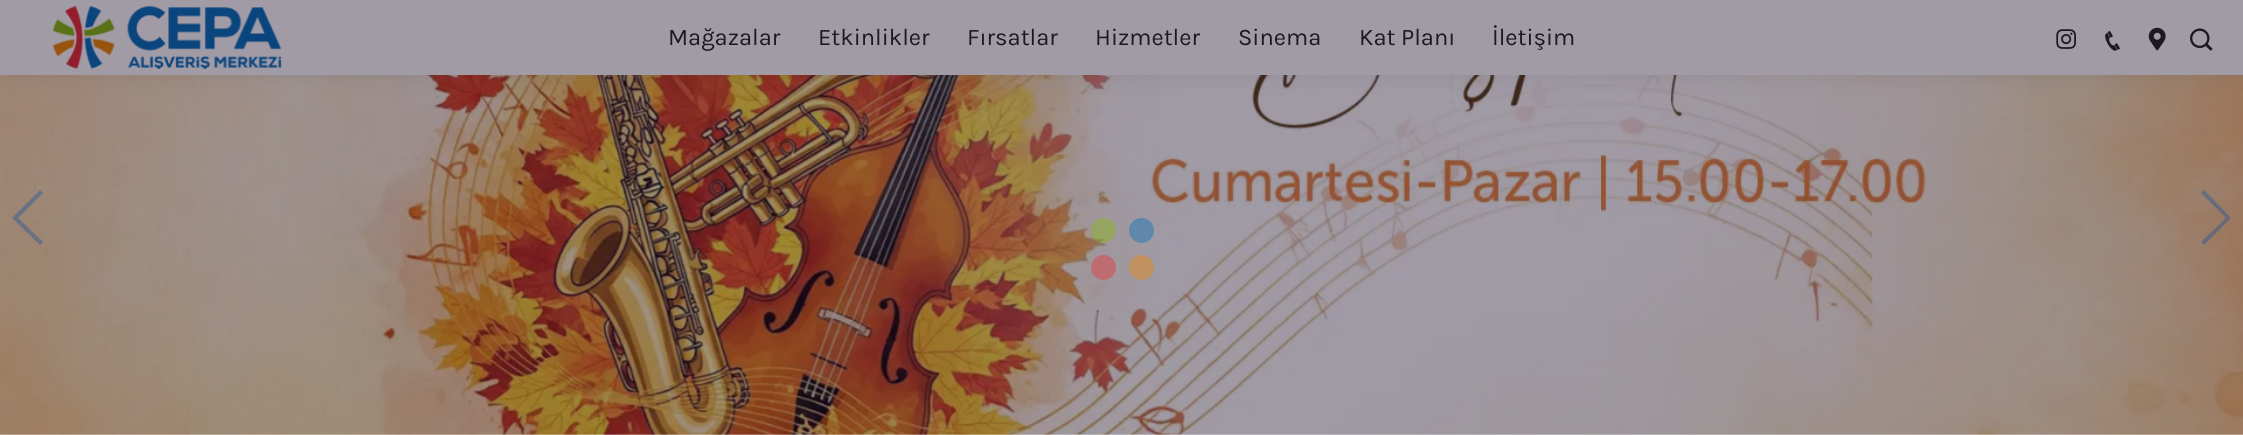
import math
import cairo

surface = cairo.ImageSurface(cairo.FORMAT_RGB24, 2243, 435)
cr = cairo.Context(surface)
options = cairo.FontOptions()
options.set_hint_metrics(cairo.HINT_METRICS_OFF)
options.set_hint_style(cairo.HINT_STYLE_NONE)
cr.set_font_options(options)
cr.set_miter_limit(4)


def rgb(code):
    cr.set_source_rgb(*(v / 255 for v in bytes.fromhex(code[-6:])))


def rrect(x, y, w, h, r):
    cr.new_sub_path()
    for i, (u, v) in enumerate([(x + w - r, y + h - r), (x + r, y + h - r), (x + r, y + r), (x + w - r, y + r)]):
        cr.arc(u, v, r, i * math.pi / 2, (i + 1) * math.pi / 2)
    cr.close_path()


def soft_shadow(x, y, w, h, r, blur, alpha):
    cr.push_group_with_content(cairo.CONTENT_ALPHA)
    cr.set_operator(cairo.OPERATOR_SOURCE)
    for i in range(15, -16, -2):
        e = blur * i / 6
        if min(w, h) + 2 * e > 0:
            cr.set_source_rgba(0, 0, 0, alpha * math.erfc((i - 1) / 8.5) / 2)
            rrect(x - e, y - e, w + 2 * e, h + 2 * e, max(0, min(r + e + blur * .6, min(w, h) / 2 + e)))
            cr.fill()
    cr.mask(cr.pop_group())


def image(path, x, y, w, h):
    cr.save()
    cr.set_source_surface(cairo.ImageSurface.create_from_png(path), x, y)
    cr.rectangle(x, y, w, h)
    cr.fill()
    cr.restore()


rgb("#ffffff")
cr.paint()
image("img/6.png", 0, 75, 2243, 360)
rgb("#1d1621")
soft_shadow(6, 6, 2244, 75, 0, 9.5, 0.07)
rgb("#a19ba6")
cr.rectangle(0, 0, 2243, 75)
cr.fill()
image("img/1.png", 53, 6, 229, 63)
image("img/2.png", 2056, 29, 20, 20)
image("img/3.png", 2105, 31, 15, 20)
image("img/4.png", 2148, 27, 18, 24)
image("img/5.png", 2190, 28, 23, 23)
cr.set_source_rgba(0.039, 0.298, 0.651, 0.35)
cr.new_path()
cr.move_to(12, 218)
cr.line_to(40, 190)
cr.line_to(43, 193)
cr.line_to(18, 218)
cr.line_to(43, 242)
cr.line_to(40, 245)
cr.close_path()
cr.fill()
cr.new_path()
cr.move_to(2231, 218)
cr.line_to(2204, 245)
cr.line_to(2201, 242)
cr.line_to(2226, 218)
cr.line_to(2201, 193)
cr.line_to(2204, 190)
cr.close_path()
cr.fill()
cr.set_source_rgba(0, 0.431, 0.725, 0.41)
cr.arc(1141.5, 230.5, 12.5, 0, 2 * math.pi)
cr.fill()
cr.set_source_rgba(0.522, 0.729, 0.051, 0.41)
cr.arc(1103.5, 230.5, 12.5, 0, 2 * math.pi)
cr.fill()
cr.set_source_rgba(0.941, 0.533, 0, 0.41)
cr.arc(1141.5, 267.5, 12.5, 0, 2 * math.pi)
cr.fill()
cr.set_source_rgba(0.906, 0.188, 0.192, 0.41)
cr.arc(1103.5, 267.5, 12.5, 0, 2 * math.pi)
cr.fill()
cr.select_font_face("Karla")
cr.set_font_size(23.75)
rgb("#1e1823")
for x, y, s in [
    (668, 45, "Mağazalar"),
    (818, 45, "Etkinlikler"),
    (967, 45, "Fırsatlar"),
    (1095, 45, "Hizmetler"),
    (1238, 45, "Sinema"),
    (1359, 45, "Kat Planı"),
    (1492, 45, "İletişim"),
]:
    cr.move_to(x, y)
    cr.show_text(s)
surface.write_to_png("page.png")
